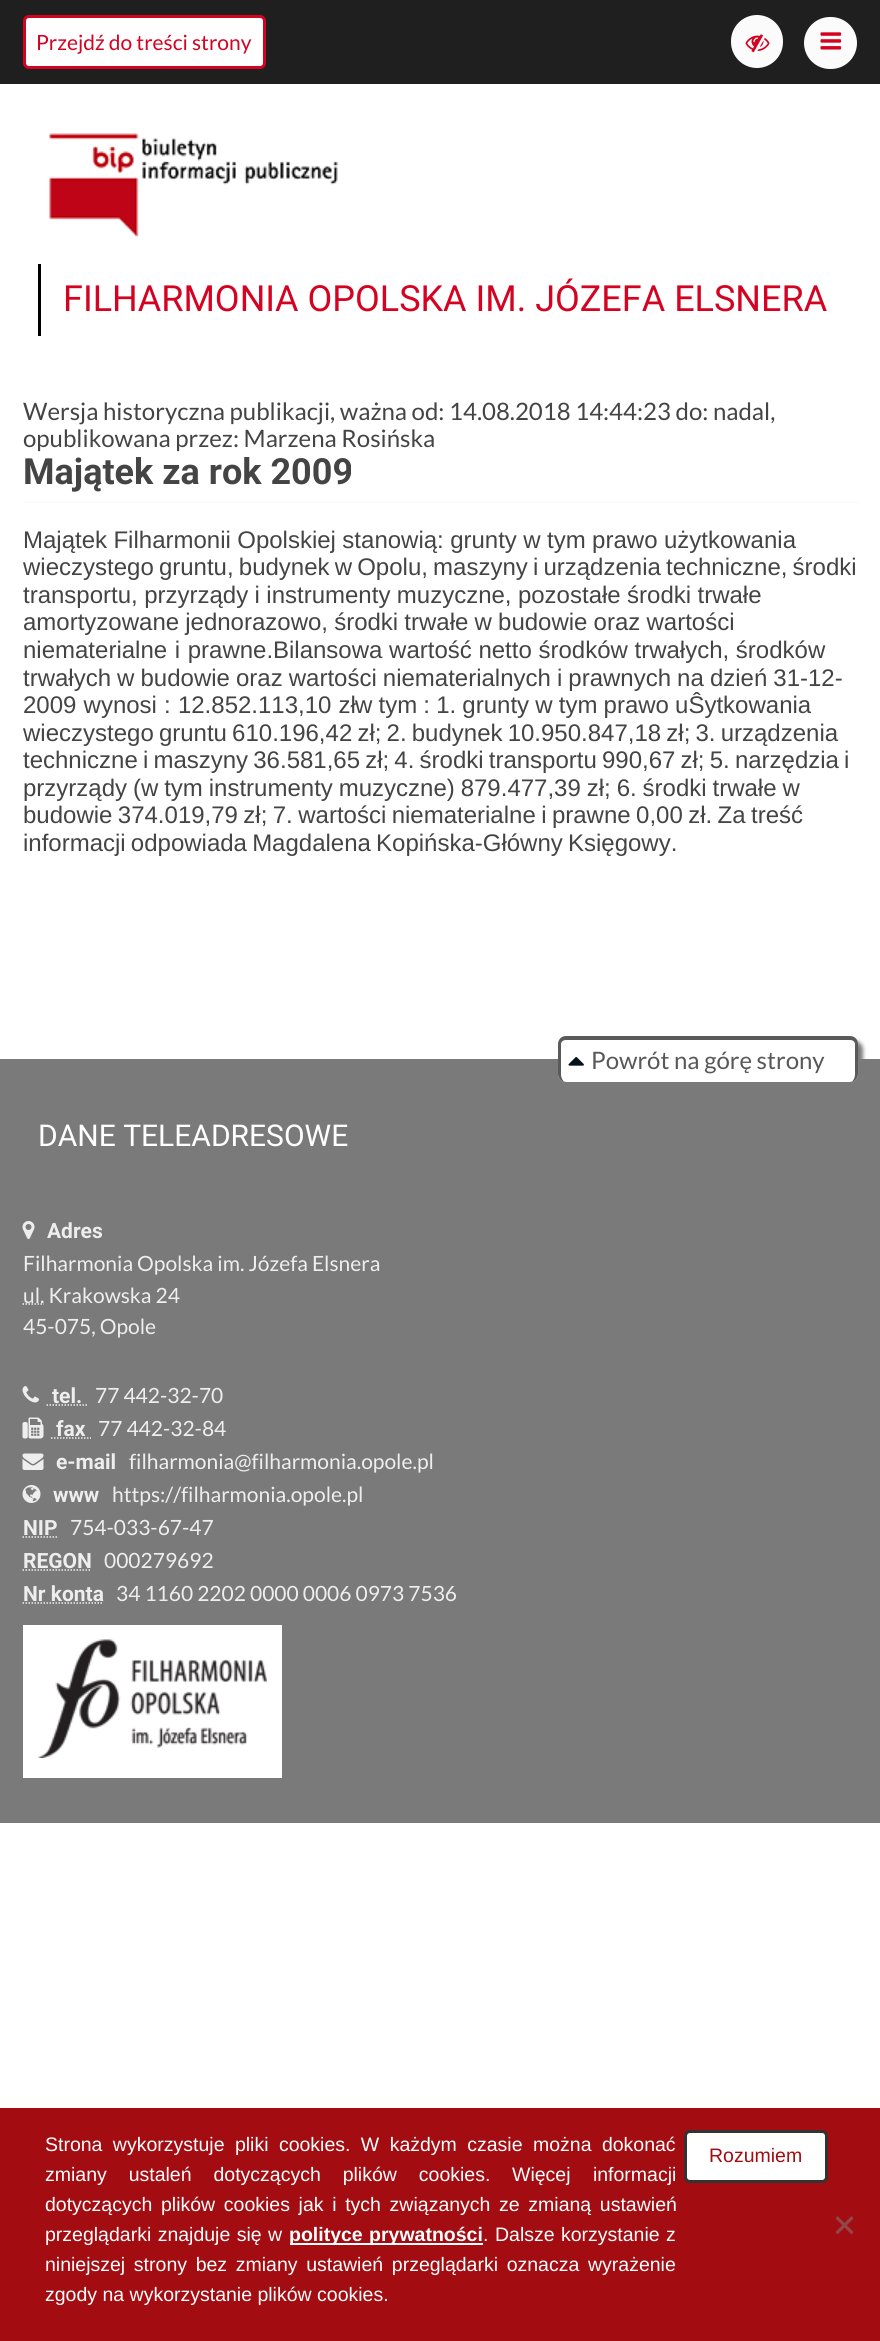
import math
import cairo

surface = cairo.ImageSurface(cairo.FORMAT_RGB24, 880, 2341)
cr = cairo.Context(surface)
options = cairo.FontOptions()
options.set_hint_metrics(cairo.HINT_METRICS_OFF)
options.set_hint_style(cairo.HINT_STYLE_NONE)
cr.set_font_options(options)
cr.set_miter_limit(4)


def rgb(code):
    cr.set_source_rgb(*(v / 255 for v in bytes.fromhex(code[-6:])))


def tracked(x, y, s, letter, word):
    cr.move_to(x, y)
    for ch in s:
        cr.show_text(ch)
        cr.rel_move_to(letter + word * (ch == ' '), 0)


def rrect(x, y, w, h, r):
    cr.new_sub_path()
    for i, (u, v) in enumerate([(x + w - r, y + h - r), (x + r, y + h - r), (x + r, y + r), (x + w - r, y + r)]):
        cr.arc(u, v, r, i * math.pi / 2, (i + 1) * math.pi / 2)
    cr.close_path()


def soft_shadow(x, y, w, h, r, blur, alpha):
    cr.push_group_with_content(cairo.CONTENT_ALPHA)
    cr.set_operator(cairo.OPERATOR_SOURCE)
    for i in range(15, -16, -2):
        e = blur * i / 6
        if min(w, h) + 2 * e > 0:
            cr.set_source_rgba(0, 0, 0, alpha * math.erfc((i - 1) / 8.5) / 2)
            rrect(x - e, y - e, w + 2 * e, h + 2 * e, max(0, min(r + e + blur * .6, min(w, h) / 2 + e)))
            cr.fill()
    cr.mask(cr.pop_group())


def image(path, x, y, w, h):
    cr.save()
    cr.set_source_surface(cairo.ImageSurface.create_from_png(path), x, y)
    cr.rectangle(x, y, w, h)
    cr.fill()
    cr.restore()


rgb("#ffffff")
cr.paint()
rgb("#1f1f1f")
cr.rectangle(0, 0, 880, 84)
cr.fill()
rgb("#ffffff")
rrect(24.5, 16.5, 240, 51, 4.5)
cr.fill_preserve()
rgb("#d40322")
cr.set_line_width(3)
cr.stroke()
rgb("#fbfbfb")
rrect(731, 15, 52, 53, 26)
cr.fill()
image("img/1.png", 745, 34, 25, 19)
rrect(804, 17, 53, 52, 26)
cr.fill()
image("img/2.png", 820, 32, 22, 18)
image("img/3.png", 49, 133, 289, 105)
for x, y, w, h, color in [
    (38, 264, 3, 72, "#000000"),
    (23, 501, 835, 2, "#fbfbfb"),
    (0, 1059, 880, 764, "#7a7a7a"),
]:
    rgb(color)
    cr.rectangle(x, y, w, h)
    cr.fill()
rgb("#7a7a7a")
soft_shadow(563, 1041, 300, 45, 8, 2, 1)
rgb("#ffffff")
rrect(558, 1037, 300, 45, 8)
cr.fill()
rgb("#5a5a5a")
cr.set_fill_rule(cairo.FILL_RULE_EVEN_ODD)
cr.new_path()
cr.move_to(566, 1036)
cr.line_to(850, 1036)
cr.curve_to(855, 1036, 858, 1040, 858, 1044)
cr.line_to(858, 1074)
cr.curve_to(858, 1078, 855, 1082, 850, 1082)
cr.line_to(566, 1082)
cr.curve_to(561, 1082, 558, 1078, 558, 1074)
cr.line_to(558, 1044)
cr.curve_to(558, 1040, 561, 1036, 566, 1036)
cr.close_path()
cr.move_to(566, 1040)
cr.line_to(850, 1040)
cr.curve_to(853, 1040, 855, 1042, 855, 1044)
cr.line_to(855, 1074)
cr.curve_to(855, 1078, 853, 1082, 850, 1082)
cr.line_to(566, 1082)
cr.curve_to(563, 1082, 561, 1078, 561, 1074)
cr.line_to(561, 1044)
cr.curve_to(561, 1042, 563, 1040, 566, 1040)
cr.close_path()
cr.fill()
image("img/4.png", 568, 1057, 16, 9)
image("img/5.png", 22, 1221, 13, 18)
cr.new_path()
cr.move_to(22.5, 1304)
cr.line_to(44, 1304)
rgb("#eeeeee")
cr.set_line_width(1.5)
cr.set_dash([1.5, 1.5])
cr.stroke()
image("img/6.png", 22, 1386, 17, 17)
cr.new_path()
cr.move_to(46.5, 1405)
cr.line_to(87, 1405)
cr.stroke()
image("img/7.png", 22, 1417, 22, 22)
cr.new_path()
cr.move_to(51, 1438)
cr.line_to(91, 1438)
cr.stroke()
image("img/8.png", 22, 1453, 22, 17)
image("img/9.png", 22, 1485, 19, 18)
cr.new_path()
cr.move_to(22.5, 1537)
cr.line_to(57, 1537)
cr.stroke()
cr.new_path()
cr.move_to(22.5, 1570)
cr.line_to(91.5, 1570)
cr.stroke()
cr.new_path()
cr.move_to(22.5, 1603)
cr.line_to(103.5, 1603)
cr.stroke()
rgb("#ffffff")
cr.rectangle(23, 1625, 259, 153)
cr.fill()
image("img/10.png", 37, 1639, 230, 119)
rgb("#a30c11")
cr.rectangle(0, 2108, 880, 233)
cr.fill()
rgb("#ffffff")
cr.rectangle(290, 2243, 193, 2)
cr.fill()
rrect(685.5, 2131.5, 141, 50, 4.5)
cr.fill_preserve()
rgb("#333333")
cr.set_line_width(3)
cr.set_dash([])
cr.stroke()
rgb("#924649")
cr.set_fill_rule(cairo.FILL_RULE_WINDING)
cr.new_path()
cr.move_to(851.5, 2216)
cr.line_to(853.5, 2218.5)
cr.line_to(837.5, 2234.5)
cr.line_to(835.5, 2232)
cr.close_path()
cr.fill()
cr.new_path()
cr.move_to(835.5, 2218.5)
cr.line_to(837.5, 2216)
cr.line_to(853.5, 2232)
cr.line_to(851.5, 2234.5)
cr.close_path()
cr.fill()
cr.select_font_face("Lato")
cr.set_font_size(21)
rgb("#d40322")
cr.move_to(36, 50)
cr.show_text("Przejdź do treści strony")
cr.select_font_face("Roboto")
cr.set_font_size(36)
cr.move_to(63, 311)
cr.show_text("FILHARMONIA OPOLSKA IM. JÓZEFA ELSNERA")
cr.select_font_face("Lato")
cr.set_font_size(24)
rgb("#444444")
cr.move_to(23, 420)
cr.show_text("Wersja historyczna publikacji, ważna od: 14.08.2018 14:44:23 do: nadal,")
cr.move_to(23, 447)
cr.show_text("opublikowana przez: Marzena Rosińska")
cr.select_font_face("Roboto", cairo.FONT_SLANT_NORMAL, cairo.FONT_WEIGHT_BOLD)
cr.set_font_size(36)
cr.move_to(23, 484)
cr.show_text("Majątek za rok 2009")
cr.select_font_face("Liberation Sans")
cr.set_font_size(24)
tracked(23, 548, "Majątek Filharmonii Opolskiej stanowią: grunty w tym prawo użytkowania", 0, -0.25)
tracked(23, 575, "wieczystego gruntu, budynek w Opolu, maszyny i urządzenia techniczne, środki", 0, -1.5)
tracked(23, 603, "transportu, przyrządy i instrumenty muzyczne, pozostałe środki trwałe", 0, -0.25)
tracked(23, 630, "amortyzowane jednorazowo, środki trwałe w budowie oraz wartości", 0, -0.5)
tracked(23, 658, "niematerialne i prawne.", 0, 1)
cr.move_to(273, 658)
cr.show_text("Bilansowa wartość netto środków trwałych, środków")
tracked(23, 686, "trwałych w budowie oraz wartości niematerialnych i prawnych na dzień 31-12-", 0, -0.6)
tracked(23, 713, "2009 wynosi : 12.852.113,10 zł", 0, 0.5)
tracked(355, 713, "w tym : 1. grunty w tym prawo uŜytkowania", 0, -0.5)
tracked(23, 741, "wieczystego gruntu 610.196,42 zł; 2. budynek 10.950.847,18 zł; 3. urządzenia", 0, -1.5)
tracked(23, 768, "techniczne i maszyny 36.581,65 zł; 4. środki transportu 990,67 zł; 5. narzędzia i", 0, -1.5)
tracked(23, 796, "przyrządy (w tym instrumenty muzyczne) 879.477,39 zł; 6. środki trwałe w", 0, -0.75)
tracked(23, 823, "budowie 374.019,79 zł; 7. wartości niematerialne i prawne 0,00 zł. Za treść", 0, -1.25)
tracked(23, 851, "informacji odpowiada Magdalena Kopińska-Główny Księgowy.", 0, -1.5)
cr.select_font_face("Lato")
rgb("#585858")
cr.move_to(591, 1069)
cr.show_text("Powrót na górę strony")
cr.select_font_face("Roboto")
cr.set_font_size(30)
rgb("#ffffff")
cr.move_to(38, 1146)
cr.show_text("DANE TELEADRESOWE")
cr.select_font_face("Roboto", cairo.FONT_SLANT_NORMAL, cairo.FONT_WEIGHT_BOLD)
cr.set_font_size(21)
rgb("#eeeeee")
cr.move_to(47, 1238)
cr.show_text("Adres")
cr.select_font_face("Lato")
for x, y, s in [
    (23, 1271, "Filharmonia Opolska im. Józefa Elsnera"),
    (23, 1303, "ul. Krakowska 24"),
    (23, 1334, "45-075, Opole"),
]:
    cr.move_to(x, y)
    cr.show_text(s)
cr.select_font_face("Roboto", cairo.FONT_SLANT_NORMAL, cairo.FONT_WEIGHT_BOLD)
cr.move_to(52, 1403)
cr.show_text("tel.")
cr.select_font_face("Lato")
cr.move_to(95, 1403)
cr.show_text("77 442-32-70")
cr.select_font_face("Roboto", cairo.FONT_SLANT_NORMAL, cairo.FONT_WEIGHT_BOLD)
cr.move_to(56, 1436)
cr.show_text("fax")
cr.select_font_face("Lato")
cr.move_to(98, 1436)
cr.show_text("77 442-32-84")
cr.select_font_face("Roboto", cairo.FONT_SLANT_NORMAL, cairo.FONT_WEIGHT_BOLD)
cr.move_to(56, 1469)
cr.show_text("e-mail")
cr.select_font_face("Lato")
cr.move_to(129, 1469)
cr.show_text("filharmonia@filharmonia.opole.pl")
cr.select_font_face("Roboto", cairo.FONT_SLANT_NORMAL, cairo.FONT_WEIGHT_BOLD)
cr.move_to(53, 1502)
cr.show_text("www")
cr.select_font_face("Lato")
cr.move_to(112, 1502)
cr.show_text("https://filharmonia.opole.pl")
cr.select_font_face("Roboto", cairo.FONT_SLANT_NORMAL, cairo.FONT_WEIGHT_BOLD)
cr.move_to(23, 1535)
cr.show_text("NIP")
cr.select_font_face("Lato")
cr.move_to(70, 1535)
cr.show_text("754-033-67-47")
cr.select_font_face("Roboto", cairo.FONT_SLANT_NORMAL, cairo.FONT_WEIGHT_BOLD)
cr.move_to(23, 1568)
cr.show_text("REGON")
cr.select_font_face("Lato")
cr.move_to(104, 1568)
cr.show_text("000279692")
cr.select_font_face("Roboto", cairo.FONT_SLANT_NORMAL, cairo.FONT_WEIGHT_BOLD)
cr.move_to(23, 1601)
cr.show_text("Nr konta")
cr.select_font_face("Lato")
cr.move_to(116, 1601)
cr.show_text("34 1160 2202 0000 0006 0973 7536")
cr.select_font_face("Liberation Sans")
cr.set_font_size(19.5)
rgb("#ffffff")
tracked(45, 2151, "Strona wykorzystuje pliki cookies. W każdym czasie można dokonać", 0, 5)
tracked(45, 2181, "zmiany ustaleń dotyczących plików cookies.", 0, 16.5)
tracked(512, 2181, "Więcej informacji", 0, 17)
tracked(45, 2211, "dotyczących plików cookies jak i tych związanych ze zmianą ustawień", 0, 3.25)
tracked(45, 2241, "przeglądarki znajduje się w", 0, 1)
cr.select_font_face("Liberation Sans", cairo.FONT_SLANT_NORMAL, cairo.FONT_WEIGHT_BOLD)
tracked(289, 2241, "polityce prywatności", 0, 1)
cr.select_font_face("Liberation Sans")
cr.move_to(483, 2241)
cr.show_text(".")
tracked(495, 2241, "Dalsze korzystanie z", 0, 1)
tracked(45, 2271, "niniejszej strony bez zmiany ustawień przeglądarki oznacza wyrażenie", 0, 3.25)
cr.move_to(45, 2301)
cr.show_text("zgody na wykorzystanie plików cookies.")
rgb("#a30c11")
cr.move_to(709, 2162)
cr.show_text("Rozumiem")
surface.write_to_png("page.png")
